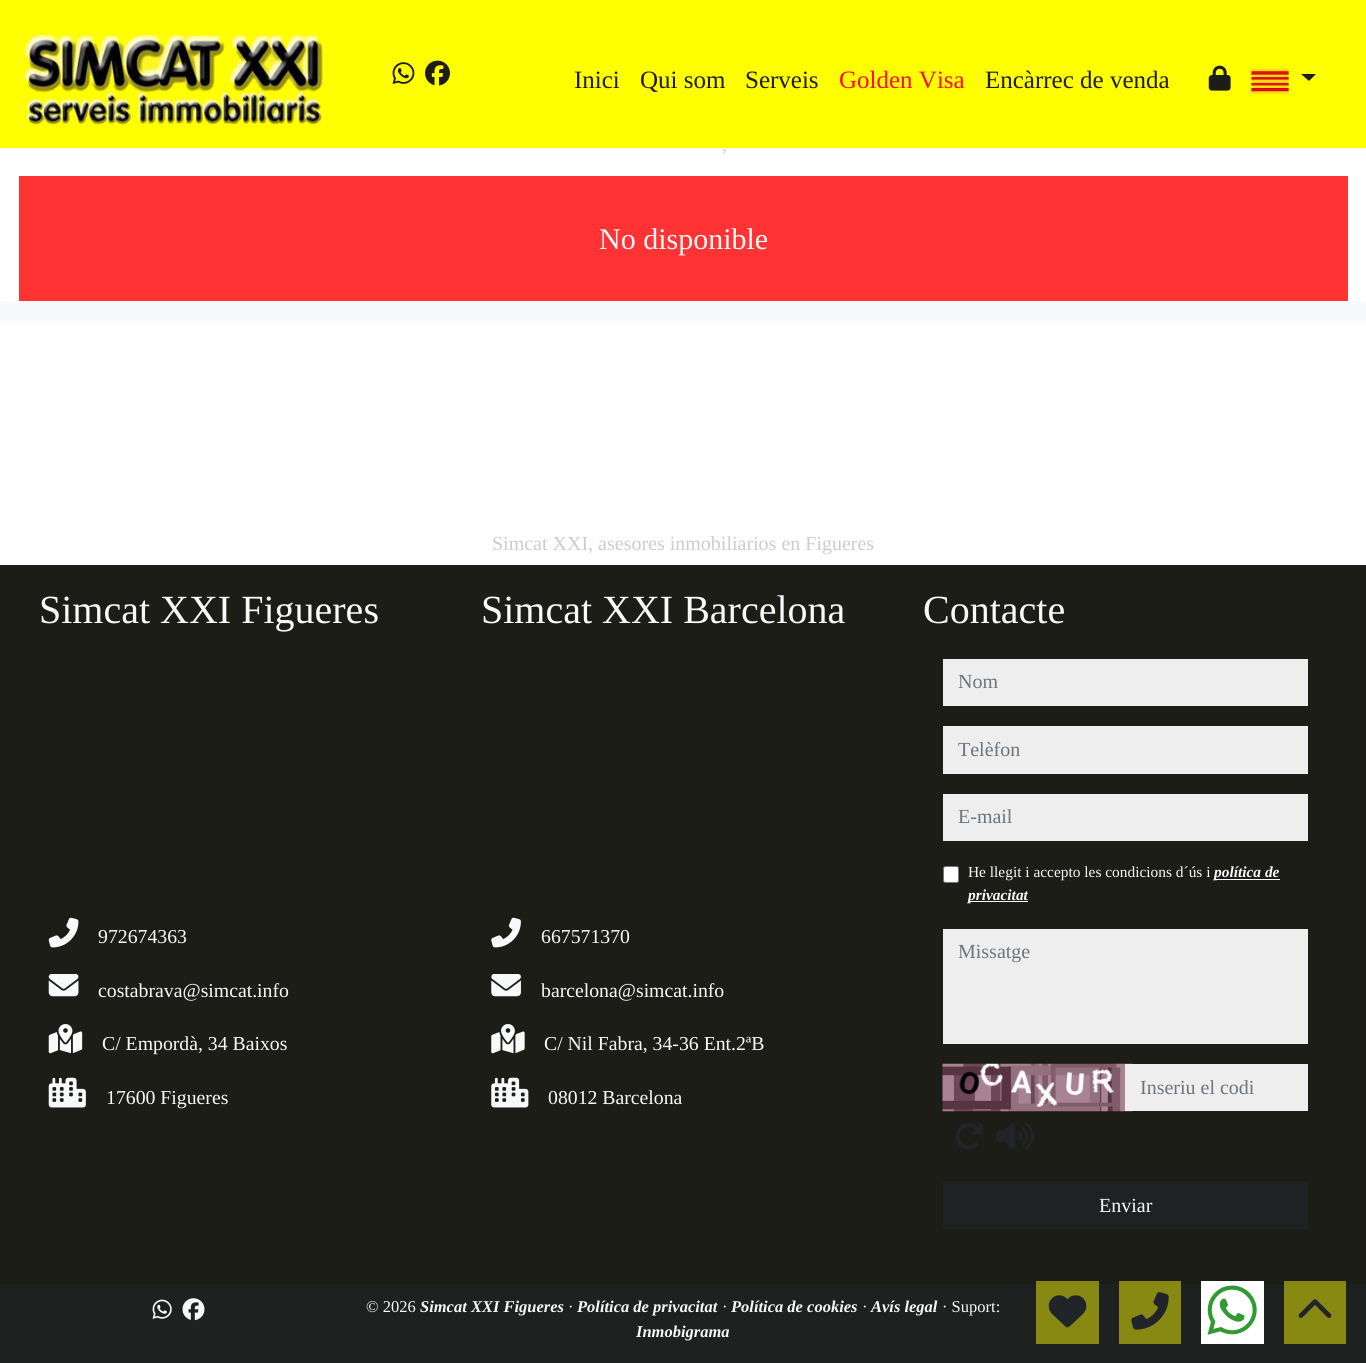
import math
import cairo

surface = cairo.ImageSurface(cairo.FORMAT_RGB24, 1366, 1363)
cr = cairo.Context(surface)
options = cairo.FontOptions()
options.set_hint_metrics(cairo.HINT_METRICS_OFF)
options.set_hint_style(cairo.HINT_STYLE_NONE)
cr.set_font_options(options)
cr.set_miter_limit(4)


def rgb(code):
    cr.set_source_rgb(*(v / 255 for v in bytes.fromhex(code[-6:])))


def rrect(x, y, w, h, r):
    cr.new_sub_path()
    for i, (u, v) in enumerate([(x + w - r, y + h - r), (x + r, y + h - r), (x + r, y + r), (x + w - r, y + r)]):
        cr.arc(u, v, r, i * math.pi / 2, (i + 1) * math.pi / 2)
    cr.close_path()


def image(path, x, y, w, h):
    cr.save()
    cr.set_source_surface(cairo.ImageSurface.create_from_png(path), x, y)
    cr.rectangle(x, y, w, h)
    cr.fill()
    cr.restore()


rgb("#ffffff")
cr.paint()
rgb("#ffff01")
cr.rectangle(0, 0, 1366, 148)
cr.fill()
image("img/1.png", 23, 34, 300, 91)
image("img/2.png", 392, 62, 23, 22)
image("img/3.png", 425, 60, 25, 26)
image("img/4.png", 1208, 65, 23, 26)
image("img/5.png", 1250, 68, 39, 26)
rgb("#1d1d17")
cr.new_path()
cr.move_to(1301, 74)
cr.line_to(1316, 74)
cr.line_to(1309, 81)
cr.close_path()
cr.fill()
for x, y, w, h, color in [
    (0, 301, 1366, 20, "#f8f9fa"),
    (19, 176, 1329, 125, "#ff3333"),
    (0, 565, 1366, 719, "#1d1d17"),
    (1036, 1281, 63, 3, "#87870d"),
    (1119, 1281, 62, 3, "#87870d"),
    (1284, 1281, 62, 3, "#87870d"),
]:
    rgb(color)
    cr.rectangle(x, y, w, h)
    cr.fill()
image("img/6.png", 48, 917, 31, 31)
image("img/7.png", 48, 974, 31, 23)
image("img/8.png", 48, 1024, 35, 30)
image("img/9.png", 48, 1077, 38, 31)
image("img/10.png", 491, 917, 30, 31)
image("img/11.png", 491, 974, 30, 23)
image("img/12.png", 491, 1024, 34, 30)
image("img/13.png", 491, 1077, 38, 31)
for x, y, w, h, color in [
    (943, 659, 365, 47, "#eeeeee"),
    (943, 726, 365, 48, "#eeeeee"),
    (943, 794, 365, 47, "#eeeeee"),
]:
    rgb(color)
    cr.rectangle(x, y, w, h)
    cr.fill()
rgb("#ffffff")
rrect(943.5, 866.5, 15, 16, 2)
cr.fill_preserve()
rgb("#767676")
cr.set_line_width(1)
cr.stroke()
for x, y, w, h, color in [
    (1214, 879, 66, 1, "#f8f9fa"),
    (968, 901, 60, 1, "#f8f9fa"),
    (943, 929, 365, 115, "#eeeeee"),
]:
    rgb(color)
    cr.rectangle(x, y, w, h)
    cr.fill()
image("img/14.png", 942, 1063, 191, 49)
image("img/15.png", 955, 1123, 28, 27)
image("img/16.png", 996, 1123, 38, 27)
for x, y, w, h, color in [
    (1125, 1064, 183, 47, "#eeeeee"),
    (943, 1181, 365, 48, "#1f2222"),
    (0, 1284, 1366, 79, "#1f2121"),
    (1036, 1284, 63, 60, "#888912"),
    (1119, 1284, 62, 60, "#888912"),
    (1284, 1284, 62, 60, "#888912"),
]:
    rgb(color)
    cr.rectangle(x, y, w, h)
    cr.fill()
image("img/17.png", 152, 1299, 20, 20)
image("img/18.png", 182, 1298, 23, 23)
image("img/19.png", 1048, 1295, 39, 33)
image("img/20.png", 1131, 1292, 38, 38)
rgb("#ffffff")
cr.rectangle(1201, 1281, 63, 63)
cr.fill()
image("img/21.png", 1207, 1285, 50, 50)
image("img/22.png", 1298, 1299, 34, 19)
cr.select_font_face("Liberation Serif")
cr.set_font_size(25)
rgb("#1d1d17")
for x, y, s in [
    (574, 88, "Inici"),
    (640, 88, "Qui som"),
    (745, 88, "Serveis"),
]:
    cr.move_to(x, y)
    cr.show_text(s)
rgb("#fe0c34")
cr.move_to(839, 88)
cr.show_text("Golden Visa")
rgb("#1d1d17")
cr.move_to(985, 88)
cr.show_text("Encàrrec de venda")
cr.set_font_size(20)
rgb("#cccccc")
cr.move_to(722, 151)
cr.show_text(",")
cr.set_font_size(30)
rgb("#f8f9fa")
cr.move_to(599, 249)
cr.show_text("No disponible")
cr.set_font_size(20)
rgb("#cccccc")
cr.move_to(492, 550)
cr.show_text("Simcat XXI, asesores inmobiliarios en Figueres")
cr.set_font_size(40)
rgb("#f8f9fa")
cr.move_to(39, 623)
cr.show_text("Simcat XXI Figueres")
cr.set_font_size(19.75)
for x, y, s in [
    (98, 943, "972674363"),
    (98, 997, "costabrava@simcat.info"),
    (102, 1050, "C/ Empordà, 34 Baixos"),
    (106, 1104, "17600 Figueres"),
]:
    cr.move_to(x, y)
    cr.show_text(s)
cr.set_font_size(40)
cr.move_to(481, 623)
cr.show_text("Simcat XXI Barcelona")
cr.set_font_size(19.75)
for x, y, s in [
    (541, 943, "667571370"),
    (541, 997, "barcelona@simcat.info"),
    (544, 1050, "C/ Nil Fabra, 34-36 Ent.2ªB"),
    (548, 1104, "08012 Barcelona"),
]:
    cr.move_to(x, y)
    cr.show_text(s)
cr.set_font_size(40)
cr.move_to(923, 623)
cr.show_text("Contacte")
cr.set_font_size(20)
rgb("#6c757d")
for x, y, s in [
    (958, 688, "Nom"),
    (958, 756, "Telèfon"),
    (958, 823, "E-mail"),
]:
    cr.move_to(x, y)
    cr.show_text(s)
cr.set_font_size(15.4)
rgb("#f8f9fa")
cr.move_to(968, 877)
cr.show_text("He llegit i accepto les condicions d´ús i")
cr.select_font_face("Liberation Serif", cairo.FONT_SLANT_ITALIC, cairo.FONT_WEIGHT_BOLD)
cr.move_to(1214, 877)
cr.show_text("política de")
cr.move_to(968, 900)
cr.show_text("privacitat")
cr.select_font_face("Liberation Serif")
cr.set_font_size(20)
rgb("#6c757d")
cr.move_to(958, 958)
cr.show_text("Missatge")
cr.move_to(1140, 1094)
cr.show_text("Inseriu el codi")
rgb("#f8f9fa")
cr.move_to(1099, 1212)
cr.show_text("Enviar")
cr.set_font_size(16.5)
cr.move_to(366, 1312)
cr.show_text("© 2026")
cr.select_font_face("Liberation Serif", cairo.FONT_SLANT_ITALIC, cairo.FONT_WEIGHT_BOLD)
cr.move_to(420, 1312)
cr.show_text("Simcat XXI Figueres")
cr.select_font_face("Liberation Serif")
cr.move_to(568, 1312)
cr.show_text("·")
cr.select_font_face("Liberation Serif", cairo.FONT_SLANT_ITALIC, cairo.FONT_WEIGHT_BOLD)
cr.move_to(577, 1312)
cr.show_text("Política de privacitat")
cr.select_font_face("Liberation Serif")
cr.move_to(722, 1312)
cr.show_text("·")
cr.select_font_face("Liberation Serif", cairo.FONT_SLANT_ITALIC, cairo.FONT_WEIGHT_BOLD)
cr.move_to(731, 1312)
cr.show_text("Política de cookies")
cr.select_font_face("Liberation Serif")
cr.move_to(862, 1312)
cr.show_text("·")
cr.select_font_face("Liberation Serif", cairo.FONT_SLANT_ITALIC, cairo.FONT_WEIGHT_BOLD)
cr.move_to(871, 1312)
cr.show_text("Avís legal")
cr.select_font_face("Liberation Serif")
cr.move_to(942, 1312)
cr.show_text("· Suport:")
cr.select_font_face("Liberation Serif", cairo.FONT_SLANT_ITALIC, cairo.FONT_WEIGHT_BOLD)
cr.move_to(636, 1337)
cr.show_text("Inmobigrama")
surface.write_to_png("page.png")
